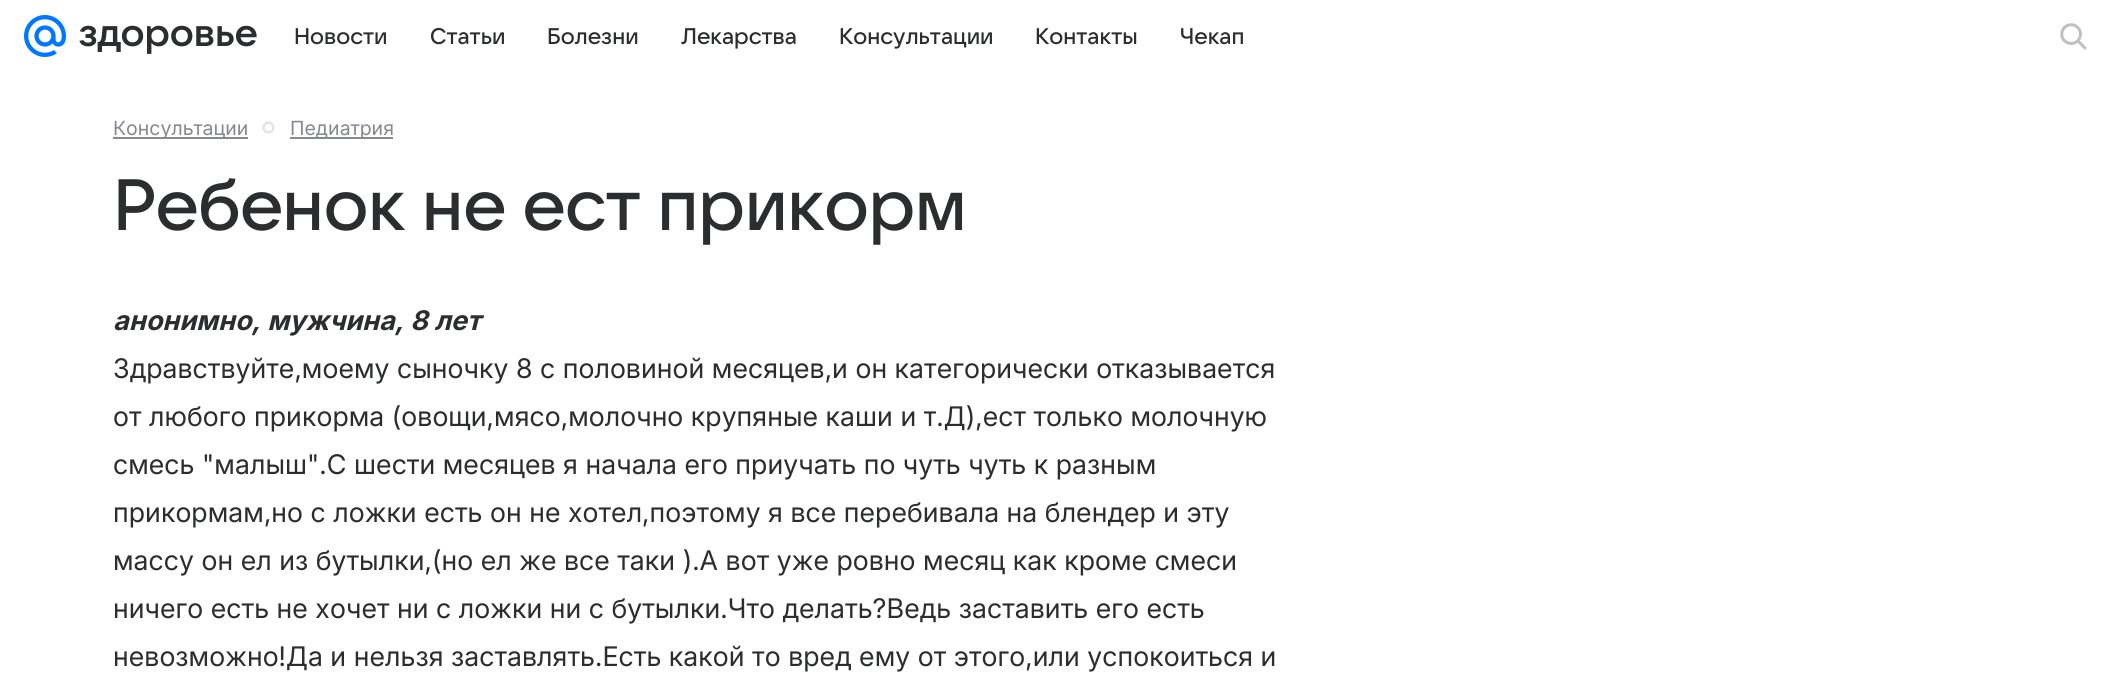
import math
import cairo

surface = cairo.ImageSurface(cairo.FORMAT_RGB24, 2114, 693)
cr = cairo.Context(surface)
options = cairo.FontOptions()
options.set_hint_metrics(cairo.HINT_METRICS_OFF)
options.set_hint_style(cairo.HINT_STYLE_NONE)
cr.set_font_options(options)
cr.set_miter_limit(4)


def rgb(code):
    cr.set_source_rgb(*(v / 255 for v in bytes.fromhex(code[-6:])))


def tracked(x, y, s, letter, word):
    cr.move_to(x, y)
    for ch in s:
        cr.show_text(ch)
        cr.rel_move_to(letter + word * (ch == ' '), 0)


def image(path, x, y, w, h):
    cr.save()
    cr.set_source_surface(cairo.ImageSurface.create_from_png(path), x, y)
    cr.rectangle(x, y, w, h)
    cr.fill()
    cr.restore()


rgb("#ffffff")
cr.paint()
image("img/1.png", 24, 15, 42, 42)
image("img/2.png", 79, 25, 178, 29)
image("img/3.png", 2060, 23, 27, 27)
rgb("#87898f")
cr.rectangle(113, 137, 135, 2)
cr.fill()
image("img/4.png", 262, 121, 13, 13)
cr.rectangle(290, 137, 103, 2)
cr.fill()
cr.select_font_face("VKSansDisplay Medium")
cr.set_font_size(22.5)
rgb("#2c2d2e")
for x, y, s in [
    (294, 44, "Новости"),
    (430, 44, "Статьи"),
    (547, 44, "Болезни"),
    (681, 44, "Лекарства"),
    (839, 44, "Консультации"),
    (1035, 44, "Контакты"),
    (1180, 44, "Чекап"),
]:
    cr.move_to(x, y)
    cr.show_text(s)
cr.select_font_face("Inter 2")
cr.set_font_size(19.5)
rgb("#87898f")
cr.move_to(113, 135)
cr.show_text("Консультации")
cr.move_to(290, 135)
cr.show_text("Педиатрия")
cr.select_font_face("VKSansDisplay Medium")
cr.set_font_size(72)
rgb("#2c2d2e")
tracked(113, 230, "Ребенок не ест прикорм", -0.4, 0)
cr.select_font_face("Inter", cairo.FONT_SLANT_ITALIC, cairo.FONT_WEIGHT_BOLD)
cr.set_font_size(27)
tracked(113, 330, "анонимно, мужчина, 8 лет", 0.08, 0)
cr.select_font_face("Inter")
for x, y, s in [
    (113, 378, "Здравствуйте,моему сыночку 8 с половиной месяцев,и он категорически отказывается"),
    (113, 426, "от любого прикорма (овощи,мясо,молочно крупяные каши и т.Д),ест только молочную"),
    (113, 474, "смесь \"малыш\".С шести месяцев я начала его приучать по чуть чуть к разным"),
    (113, 522, "прикормам,но с ложки есть он не хотел,поэтому я все перебивала на блендер и эту"),
    (113, 570, "массу он ел из бутылки,(но ел же все таки ).А вот уже ровно месяц как кроме смеси"),
    (113, 618, "ничего есть не хочет ни с ложки ни с бутылки.Что делать?Ведь заставить его есть"),
    (113, 666, "невозможно!Да и нельзя заставлять.Есть какой то вред ему от этого,или успокоиться и"),
]:
    tracked(x, y, s, 0.08, 0)
surface.write_to_png("page.png")
